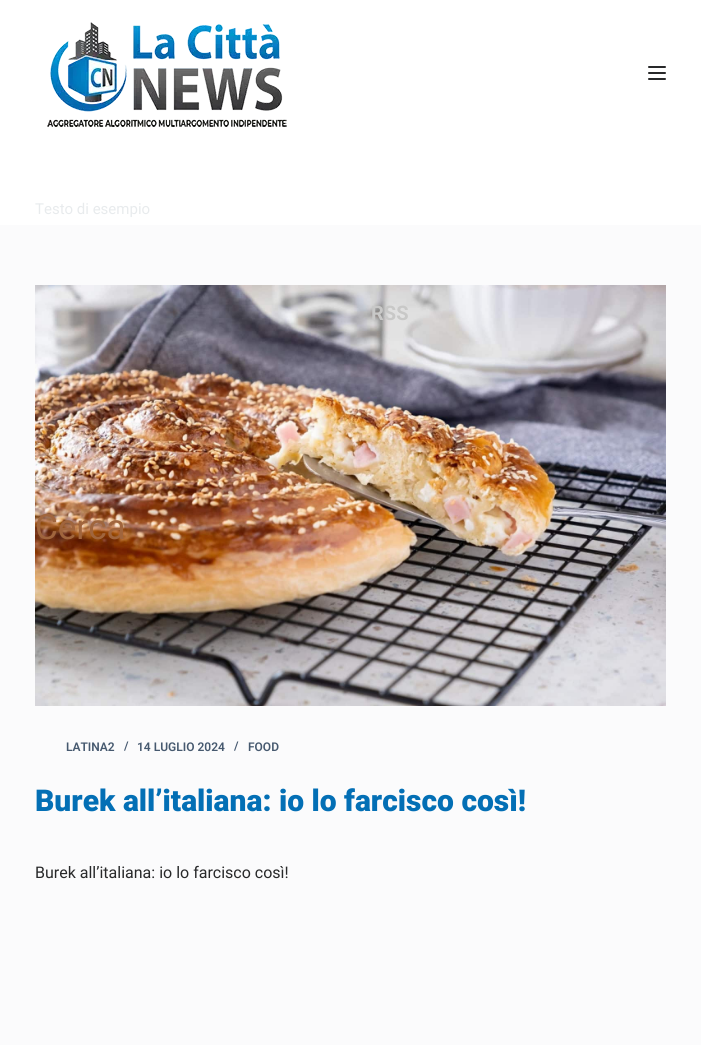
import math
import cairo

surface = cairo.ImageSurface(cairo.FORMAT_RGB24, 701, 1045)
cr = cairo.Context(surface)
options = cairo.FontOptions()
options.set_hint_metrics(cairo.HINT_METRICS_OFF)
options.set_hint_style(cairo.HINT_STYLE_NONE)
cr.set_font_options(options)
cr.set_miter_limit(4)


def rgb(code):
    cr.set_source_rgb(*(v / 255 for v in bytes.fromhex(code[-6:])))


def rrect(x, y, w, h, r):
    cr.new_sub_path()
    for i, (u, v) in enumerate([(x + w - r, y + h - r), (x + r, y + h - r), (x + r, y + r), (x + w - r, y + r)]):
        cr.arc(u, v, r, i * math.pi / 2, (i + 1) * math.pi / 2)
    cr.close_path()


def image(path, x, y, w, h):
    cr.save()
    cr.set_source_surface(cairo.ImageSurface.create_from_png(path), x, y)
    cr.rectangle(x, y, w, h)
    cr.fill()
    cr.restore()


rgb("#fbfbfc")
cr.paint()
rgb("#ffffff")
cr.rectangle(0, 0, 701, 225)
cr.fill()
image("img/1.png", 47, 22, 240, 105)
rgb("#28292a")
rrect(648, 66, 18, 2, 1)
cr.fill()
rrect(648, 72, 18, 2, 1)
cr.fill()
rrect(648, 78, 18, 2, 1)
cr.fill()
image("img/2.png", 35, 285, 631, 421)
cr.select_font_face("Roboto")
cr.set_font_size(15)
rgb("#e8ebed")
cr.move_to(35, 214)
cr.show_text("Testo di esempio")
cr.select_font_face("Roboto SemiBold")
cr.set_font_size(12)
rgb("#46596f")
for x, y, s in [
    (66, 751, "LATINA2"),
    (124, 750, "/"),
    (137, 751, "14 LUGLIO 2024"),
    (234, 750, "/"),
    (248, 751, "FOOD"),
]:
    cr.move_to(x, y)
    cr.show_text(s)
cr.select_font_face("Roboto Black")
cr.set_font_size(30)
rgb("#036fb5")
cr.move_to(35, 811)
cr.show_text("Burek all’italiana: io lo farcisco così!")
cr.select_font_face("Roboto")
cr.set_font_size(16)
rgb("#28292a")
cr.move_to(35, 878)
cr.show_text("Burek all’italiana: io lo farcisco così!")
cr.select_font_face("Roboto", cairo.FONT_SLANT_NORMAL, cairo.FONT_WEIGHT_BOLD)
cr.set_font_size(20)
rgb("#c8c8c7")
cr.move_to(371, 320)
cr.show_text("RSS")
cr.select_font_face("Roboto")
cr.set_font_size(35)
rgb("#a0653d")
cr.move_to(35, 539)
cr.show_text("Cerca")
surface.write_to_png("page.png")
